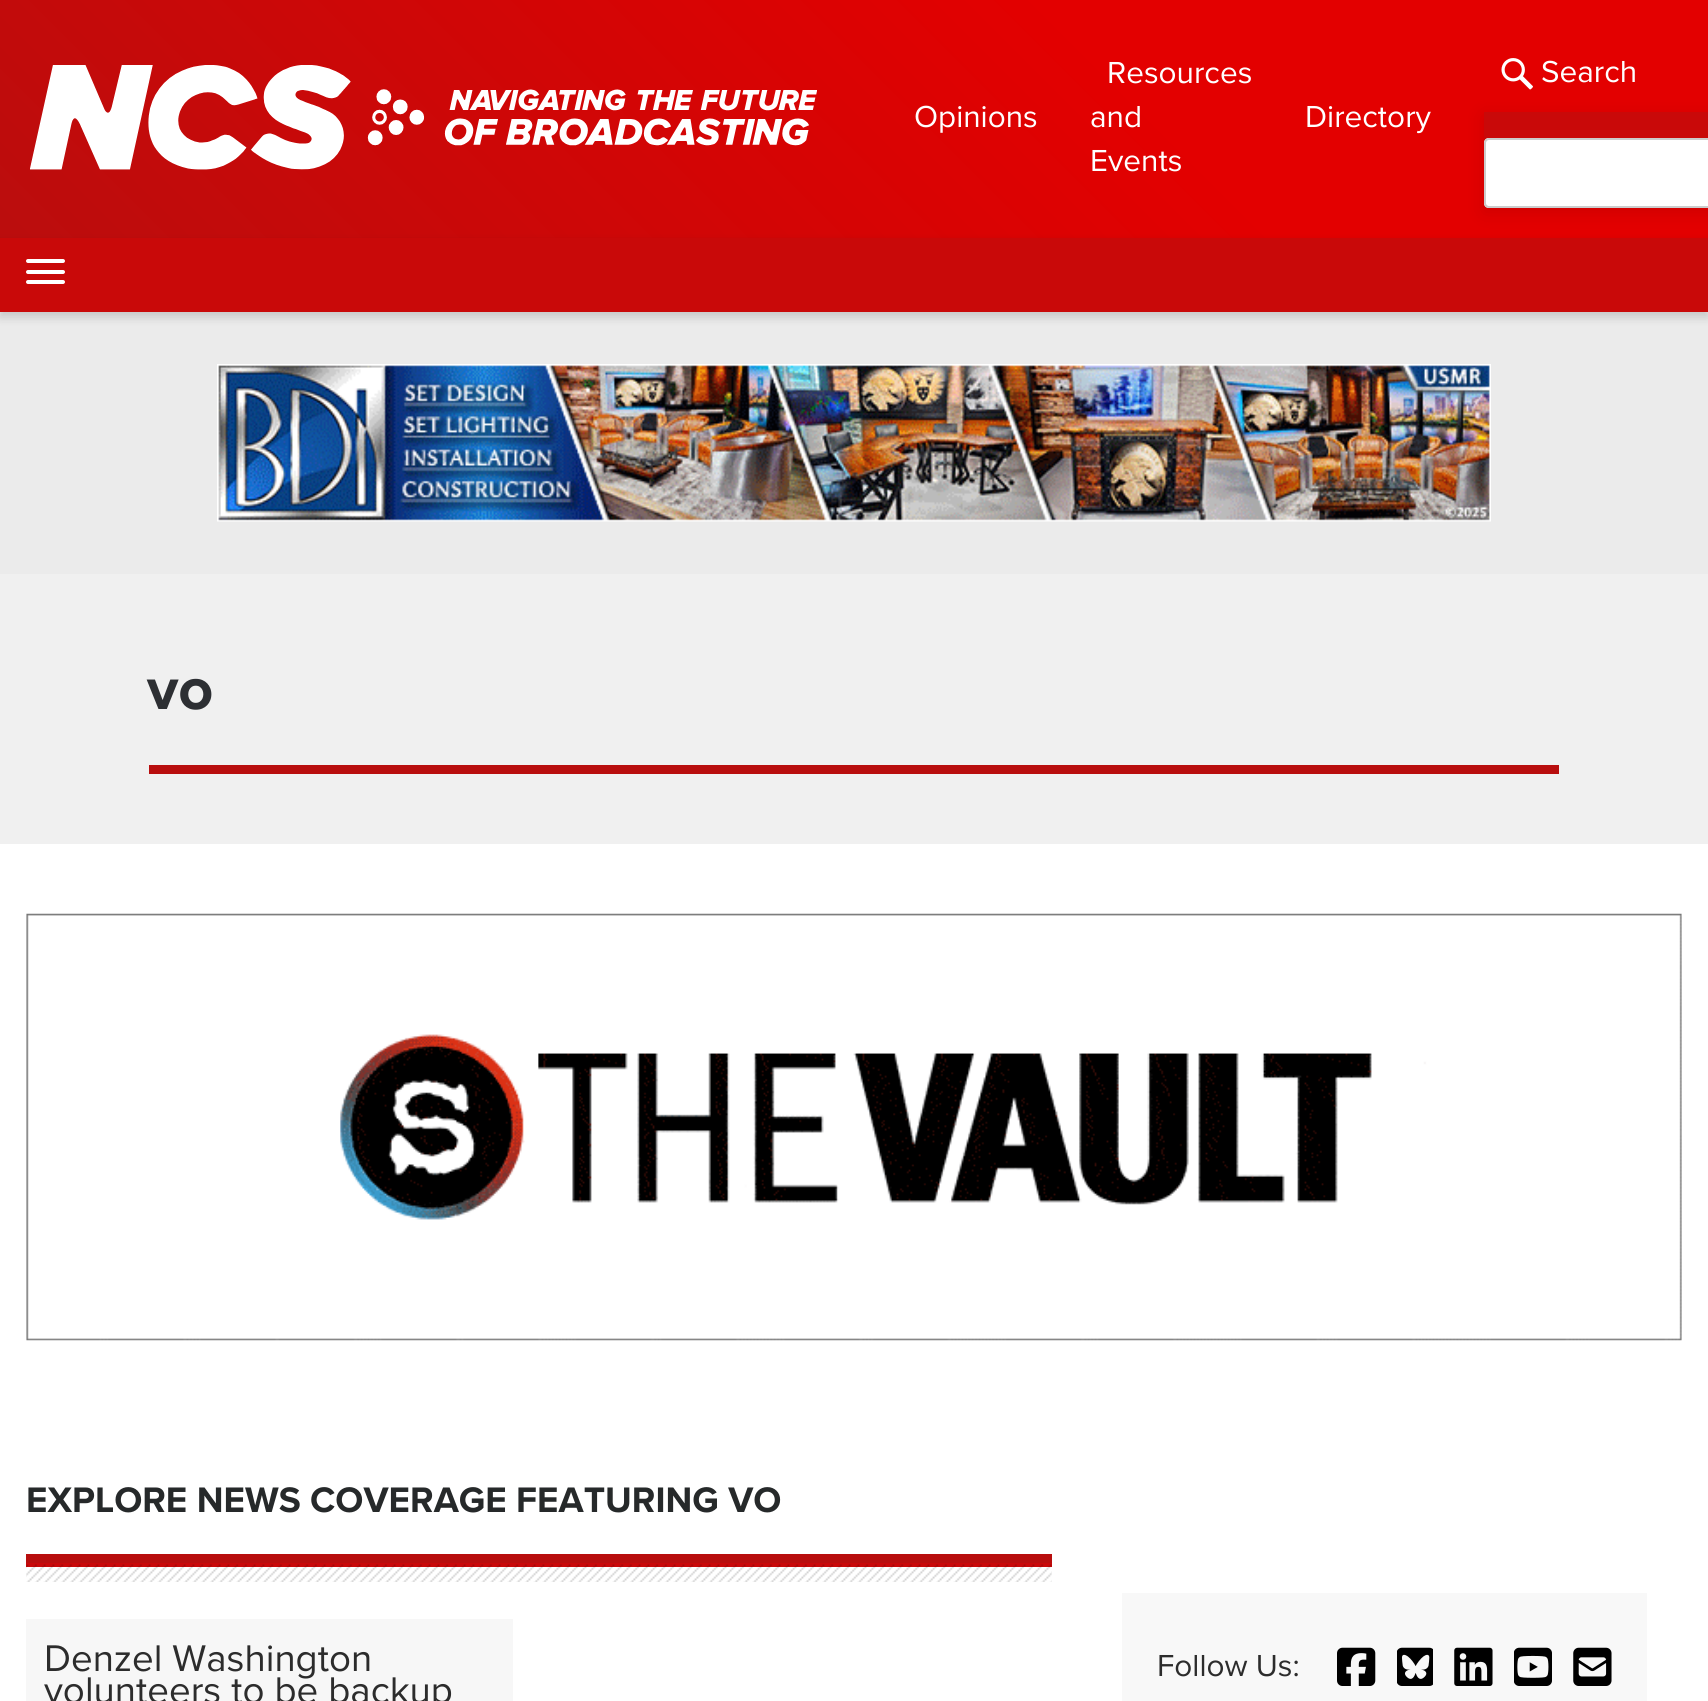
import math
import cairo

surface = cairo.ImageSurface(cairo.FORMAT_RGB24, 1708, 1701)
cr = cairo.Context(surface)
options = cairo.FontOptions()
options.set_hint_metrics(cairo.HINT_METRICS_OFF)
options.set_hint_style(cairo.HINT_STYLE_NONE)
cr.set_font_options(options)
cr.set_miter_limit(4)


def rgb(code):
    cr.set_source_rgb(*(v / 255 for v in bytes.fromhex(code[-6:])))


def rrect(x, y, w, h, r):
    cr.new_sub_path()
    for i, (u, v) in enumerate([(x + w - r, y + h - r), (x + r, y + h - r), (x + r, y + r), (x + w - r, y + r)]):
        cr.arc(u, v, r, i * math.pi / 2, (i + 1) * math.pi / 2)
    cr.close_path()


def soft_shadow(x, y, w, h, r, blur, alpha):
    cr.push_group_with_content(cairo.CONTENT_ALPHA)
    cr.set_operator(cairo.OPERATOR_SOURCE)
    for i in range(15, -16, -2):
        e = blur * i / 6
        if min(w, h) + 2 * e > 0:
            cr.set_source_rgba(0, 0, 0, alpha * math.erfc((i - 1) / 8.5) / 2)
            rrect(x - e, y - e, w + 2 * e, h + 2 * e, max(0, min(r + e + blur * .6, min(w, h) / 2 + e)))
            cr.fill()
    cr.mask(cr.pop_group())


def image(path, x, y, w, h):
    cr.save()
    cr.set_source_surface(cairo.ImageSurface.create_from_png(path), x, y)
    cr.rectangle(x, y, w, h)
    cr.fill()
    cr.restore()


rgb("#ffffff")
cr.paint()
gradient = cairo.LinearGradient(349, 661, 1359, -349)
gradient.add_color_stop_rgba(0, 0.722, 0.055, 0.055, 1)
gradient.add_color_stop_rgba(0.67, 0.89, 0, 0, 1)
cr.set_source(gradient)
cr.rectangle(0, 0, 1708, 238)
cr.fill()
image("img/1.png", 30, 65, 787, 105)
rgb("#ebebeb")
cr.rectangle(0, 312, 1708, 262)
cr.fill()
rgb("#000000")
soft_shadow(0, 243, 1708, 74, 0, 5, 0.16)
rgb("#c90909")
cr.rectangle(0, 238, 1708, 74)
cr.fill()
rgb("#000000")
soft_shadow(1484, 116, 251, 96, 0, 9, 0.1)
image("img/2.png", 1501, 58, 32, 32)
rgb("#c90909")
cr.rectangle(1484, 112, 224, 96)
cr.fill()
rgb("#ffffff")
cr.new_path()
cr.move_to(1489, 138)
cr.line_to(1708, 138)
cr.line_to(1708, 208)
cr.line_to(1489, 208)
cr.curve_to(1486, 208, 1484, 206, 1484, 203)
cr.line_to(1484, 143)
cr.curve_to(1484, 140, 1486, 138, 1489, 138)
cr.close_path()
cr.fill()
rrect(1485, 139, 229, 68, 4)
rgb("#cccccc")
cr.stroke()
rgb("#ffffff")
rrect(26, 259, 39, 4, 2)
cr.fill()
rrect(26, 270, 39, 4, 2)
cr.fill()
rrect(26, 280, 39, 4, 2)
cr.fill()
image("img/3.png", 217, 364, 1274, 158)
rgb("#f0f0f0")
cr.rectangle(0, 574, 1708, 270)
cr.fill()
rgb("#b80e0e")
cr.rectangle(149, 765, 1410, 9)
cr.fill()
image("img/4.png", 26, 913, 1656, 428)
rgb("#c9090a")
cr.rectangle(26, 1563, 1026, 4)
cr.fill()
rgb("#b80e0e")
cr.rectangle(26, 1554, 1026, 9)
cr.fill()
image("img/5.png", 26, 1564, 1026, 18)
rgb("#f7f7f7")
cr.rectangle(26, 1619, 487, 82)
cr.fill()
rgb("#f8f8f8")
cr.rectangle(1122, 1593, 525, 108)
cr.fill()
image("img/6.png", 1337, 1647, 39, 39)
image("img/7.png", 1397, 1647, 36, 39)
image("img/8.png", 1454, 1647, 39, 39)
image("img/9.png", 1514, 1647, 38, 39)
image("img/10.png", 1573, 1647, 39, 39)
cr.select_font_face("Proxima Nova")
cr.set_font_size(31.5)
rgb("#ffffff")
for x, y, s in [
    (914, 127, "Opinions"),
    (1107, 83, "Resources"),
    (1090, 127, "and"),
    (1090, 171, "Events"),
    (1305, 127, "Directory"),
    (1541, 82, "Search"),
]:
    cr.move_to(x, y)
    cr.show_text(s)
cr.select_font_face("Proxima Nova", cairo.FONT_SLANT_NORMAL, cairo.FONT_WEIGHT_BOLD)
cr.set_font_size(61)
rgb("#2d2f33")
cr.move_to(147, 709)
cr.show_text("vo")
cr.set_font_size(36.75)
rgb("#26292a")
cr.move_to(26, 1512)
cr.show_text("EXPLORE NEWS COVERAGE FEATURING VO")
cr.select_font_face("Proxima Nova")
cr.set_font_size(38.5)
rgb("#2c2c2c")
cr.move_to(44, 1671)
cr.show_text("Denzel Washington")
cr.move_to(44, 1703)
cr.show_text("volunteers to be backup")
cr.set_font_size(31.5)
cr.move_to(1157, 1676)
cr.show_text("Follow Us:")
surface.write_to_png("page.png")
